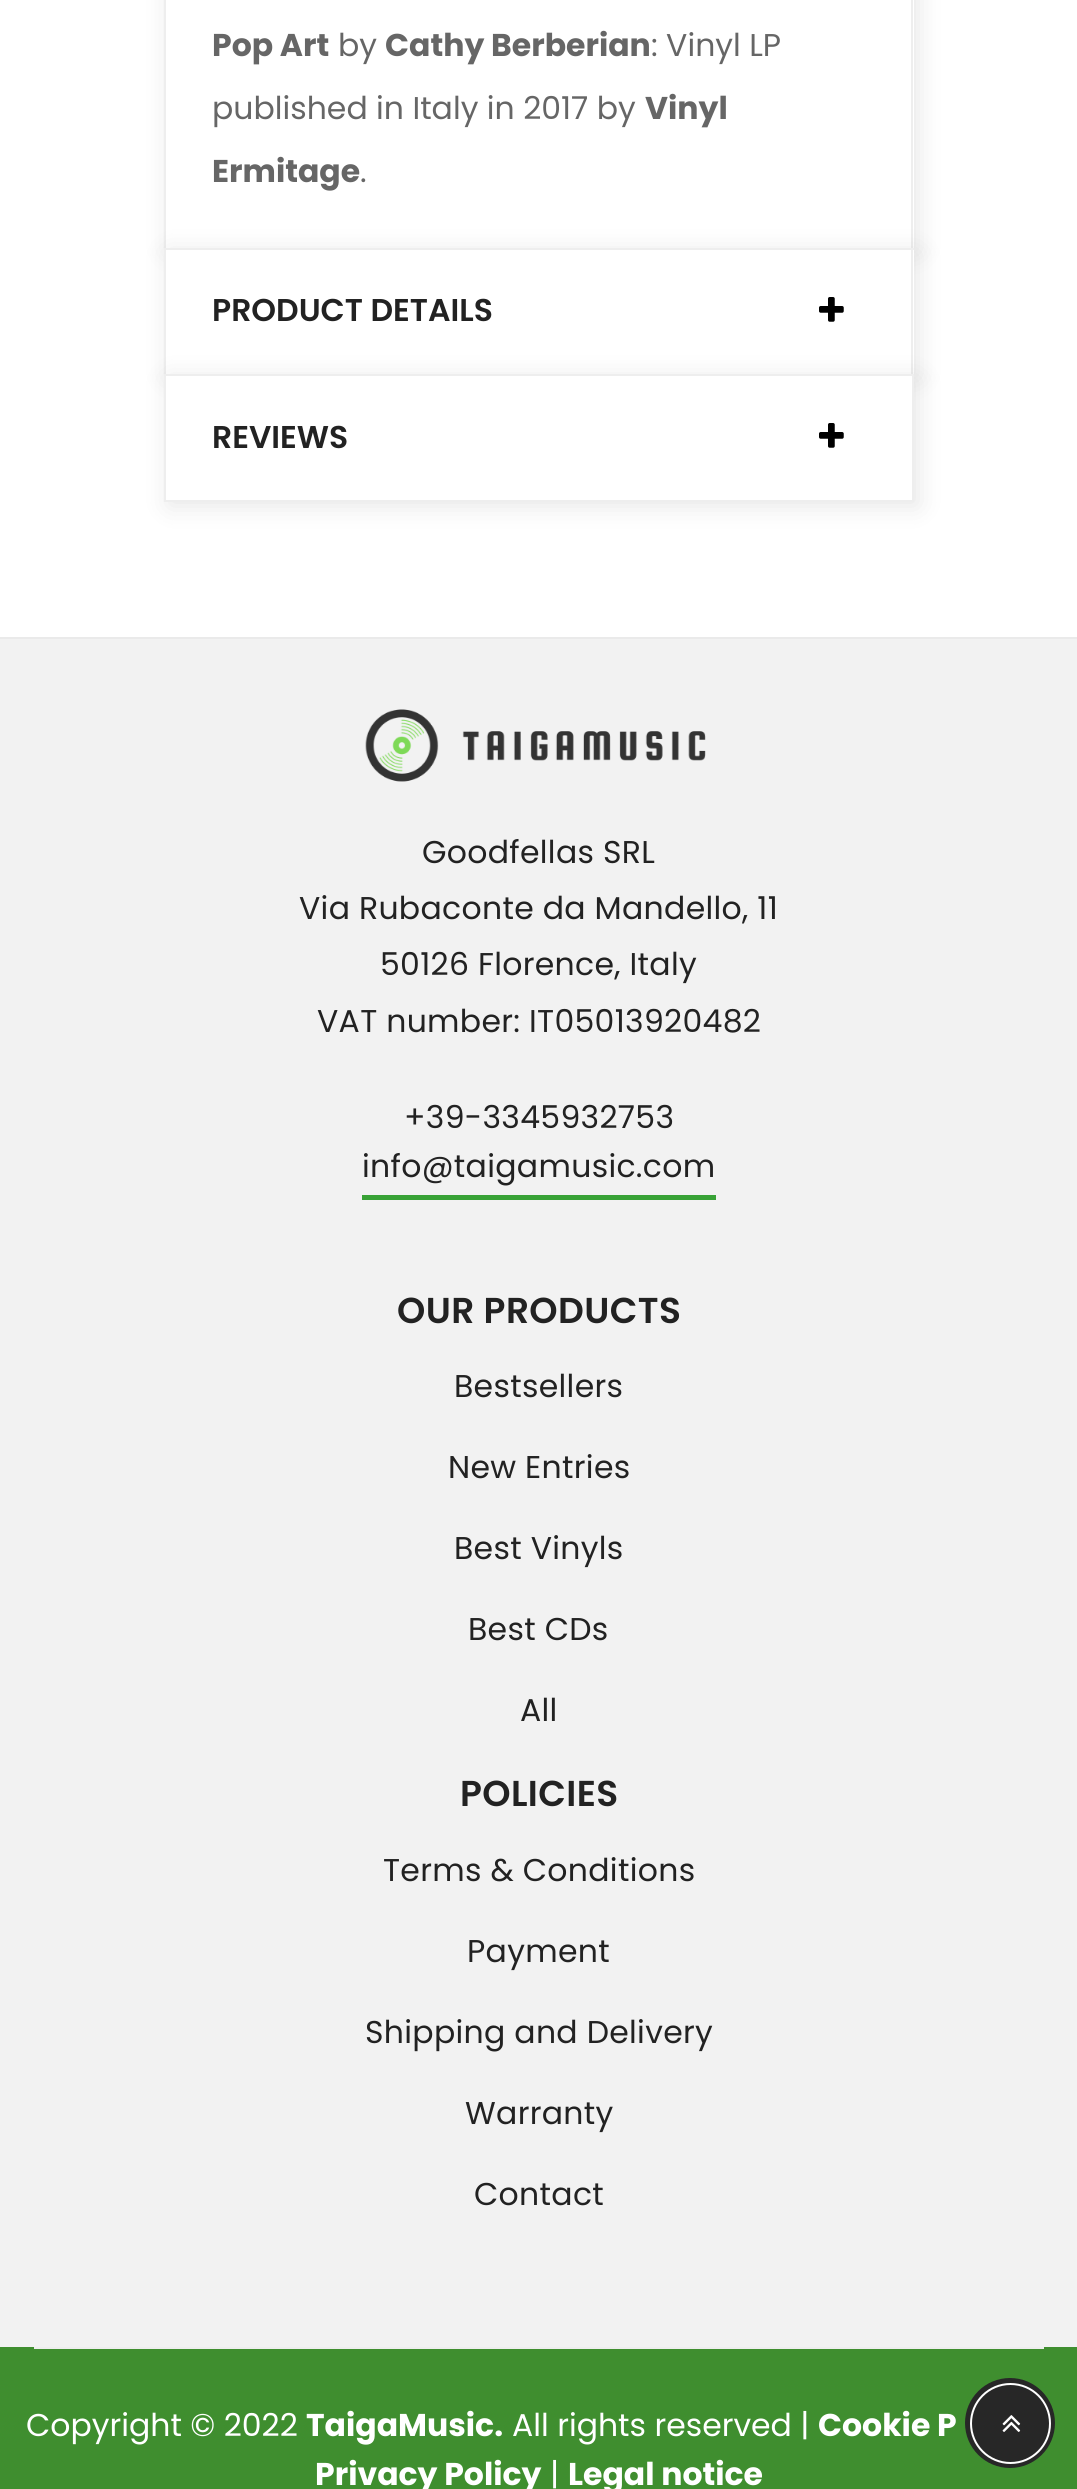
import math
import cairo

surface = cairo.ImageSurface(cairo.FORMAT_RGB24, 1077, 2489)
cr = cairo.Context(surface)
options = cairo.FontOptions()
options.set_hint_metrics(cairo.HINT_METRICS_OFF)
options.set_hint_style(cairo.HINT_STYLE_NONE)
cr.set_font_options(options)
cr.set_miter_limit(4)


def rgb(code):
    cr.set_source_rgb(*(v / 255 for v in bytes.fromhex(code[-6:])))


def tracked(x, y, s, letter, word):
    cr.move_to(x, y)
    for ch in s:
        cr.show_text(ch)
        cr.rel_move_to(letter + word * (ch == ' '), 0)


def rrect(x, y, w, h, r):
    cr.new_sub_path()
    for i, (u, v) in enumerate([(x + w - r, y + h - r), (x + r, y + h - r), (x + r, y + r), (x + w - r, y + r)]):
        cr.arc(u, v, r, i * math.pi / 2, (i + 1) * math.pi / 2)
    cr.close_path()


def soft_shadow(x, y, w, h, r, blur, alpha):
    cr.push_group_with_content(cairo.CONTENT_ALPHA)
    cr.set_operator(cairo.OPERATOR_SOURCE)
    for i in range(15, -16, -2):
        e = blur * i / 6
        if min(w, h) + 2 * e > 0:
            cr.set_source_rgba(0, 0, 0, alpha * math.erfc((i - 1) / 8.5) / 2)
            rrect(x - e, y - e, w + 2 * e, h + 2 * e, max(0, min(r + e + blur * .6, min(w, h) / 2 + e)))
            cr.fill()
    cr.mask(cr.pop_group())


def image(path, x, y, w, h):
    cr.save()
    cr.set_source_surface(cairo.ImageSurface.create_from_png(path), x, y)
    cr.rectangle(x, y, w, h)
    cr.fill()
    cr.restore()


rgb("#ffffff")
cr.paint()
rgb("#000000")
soft_shadow(169, -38, 749, 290, 0, 12.5, 0.1)
for x, y, w, h, color in [
    (166, 0, 748, 248, "#ffffff"),
    (911, 0, 2, 248, "#eeeeee"),
    (164, 0, 2, 248, "#eeeeee"),
]:
    rgb(color)
    cr.rectangle(x, y, w, h)
    cr.fill()
rgb("#000000")
soft_shadow(169, 252, 749, 126, 0, 12.5, 0.1)
for x, y, w, h, color in [
    (166, 250, 748, 124, "#ffffff"),
    (164, 248, 750, 2, "#eeeeee"),
    (911, 248, 2, 126, "#eeeeee"),
    (164, 248, 2, 126, "#eeeeee"),
]:
    rgb(color)
    cr.rectangle(x, y, w, h)
    cr.fill()
image("img/1.png", 819, 297, 25, 25)
rgb("#000000")
soft_shadow(169, 378, 749, 128, 0, 12.5, 0.1)
rgb("#ffffff")
cr.rectangle(165, 375, 748, 126)
cr.fill_preserve()
rgb("#eeeeee")
cr.stroke()
image("img/1.png", 819, 423, 25, 25)
rgb("#f2f2f2")
cr.rectangle(0, 639, 1077, 1708)
cr.fill()
rgb("#eaeaea")
cr.rectangle(0, 637, 1077, 2)
cr.fill()
image("img/2.png", 365, 709, 341, 73)
for x, y, w, h, color in [
    (362, 1195, 354, 5, "#38a236"),
    (0, 2347, 1077, 142, "#3f8e2f"),
    (34, 2347, 1010, 2, "#eeeeee"),
]:
    rgb(color)
    cr.rectangle(x, y, w, h)
    cr.fill()
rgb("#272727")
cr.arc(1010, 2423, 45, 0, 2 * math.pi)
cr.fill()
cr.arc(1010.5, 2423.5, 39.5, 0, 2 * math.pi)
rgb("#ffffff")
cr.stroke()
image("img/3.png", 1002, 2415, 19, 17)
cr.select_font_face("Poppins", cairo.FONT_SLANT_NORMAL, cairo.FONT_WEIGHT_BOLD)
cr.set_font_size(31.5)
rgb("#666666")
cr.move_to(212, 56)
cr.show_text("Pop Art")
cr.select_font_face("Poppins")
cr.move_to(338, 56)
cr.show_text("by")
cr.select_font_face("Poppins", cairo.FONT_SLANT_NORMAL, cairo.FONT_WEIGHT_BOLD)
cr.move_to(385, 56)
cr.show_text("Cathy Berberian")
cr.select_font_face("Poppins")
cr.move_to(651, 56)
cr.show_text(": Vinyl LP")
cr.move_to(212, 119)
cr.show_text("published in Italy in 2017 by")
cr.select_font_face("Poppins", cairo.FONT_SLANT_NORMAL, cairo.FONT_WEIGHT_BOLD)
cr.move_to(645, 119)
cr.show_text("Vinyl")
cr.move_to(212, 182)
cr.show_text("Ermitage")
cr.select_font_face("Poppins")
cr.move_to(360, 182)
cr.show_text(".")
cr.select_font_face("Poppins SemiBold")
rgb("#222222")
cr.move_to(212, 321)
cr.show_text("PRODUCT DETAILS")
cr.move_to(212, 448)
cr.show_text("REVIEWS")
cr.select_font_face("Poppins")
for x, y, s in [
    (422, 863, "Goodfellas SRL"),
    (299, 919, "Via Rubaconte da Mandello, 11"),
    (380, 975, "50126 Florence, Italy"),
    (317, 1032, "VAT number: IT05013920482"),
    (404, 1128, "+39-3345932753"),
    (362, 1177, "info@taigamusic.com"),
]:
    tracked(x, y, s, 0.3, 0)
cr.select_font_face("Poppins SemiBold")
cr.set_font_size(36)
tracked(397, 1323, "OUR PRODUCTS", 0.4, 0)
cr.select_font_face("Poppins")
cr.set_font_size(31.5)
for x, y, s in [
    (454, 1397, "Bestsellers"),
    (448, 1478, "New Entries"),
    (454, 1559, "Best Vinyls"),
    (468, 1640, "Best CDs"),
    (520, 1721, "All"),
]:
    tracked(x, y, s, 0.3, 0)
cr.select_font_face("Poppins SemiBold")
cr.set_font_size(36)
tracked(460, 1806, "POLICIES", 0.4, 0)
cr.select_font_face("Poppins")
cr.set_font_size(31.5)
for x, y, s in [
    (383, 1881, "Terms & Conditions"),
    (467, 1962, "Payment"),
    (365, 2043, "Shipping and Delivery"),
    (465, 2124, "Warranty"),
    (474, 2205, "Contact"),
]:
    tracked(x, y, s, 0.3, 0)
rgb("#ffffff")
cr.move_to(26, 2436)
cr.show_text("Copyright © 2022")
cr.select_font_face("Poppins", cairo.FONT_SLANT_NORMAL, cairo.FONT_WEIGHT_BOLD)
cr.move_to(306, 2436)
cr.show_text("TaigaMusic.")
cr.select_font_face("Poppins")
cr.move_to(512, 2436)
cr.show_text("All rights reserved |")
cr.select_font_face("Poppins", cairo.FONT_SLANT_NORMAL, cairo.FONT_WEIGHT_BOLD)
cr.move_to(818, 2436)
cr.show_text("Cookie P")
cr.move_to(315, 2485)
cr.show_text("Privacy Policy")
cr.select_font_face("Poppins")
cr.move_to(550, 2485)
cr.show_text("|")
cr.select_font_face("Poppins", cairo.FONT_SLANT_NORMAL, cairo.FONT_WEIGHT_BOLD)
cr.move_to(568, 2485)
cr.show_text("Legal notice")
surface.write_to_png("page.png")
